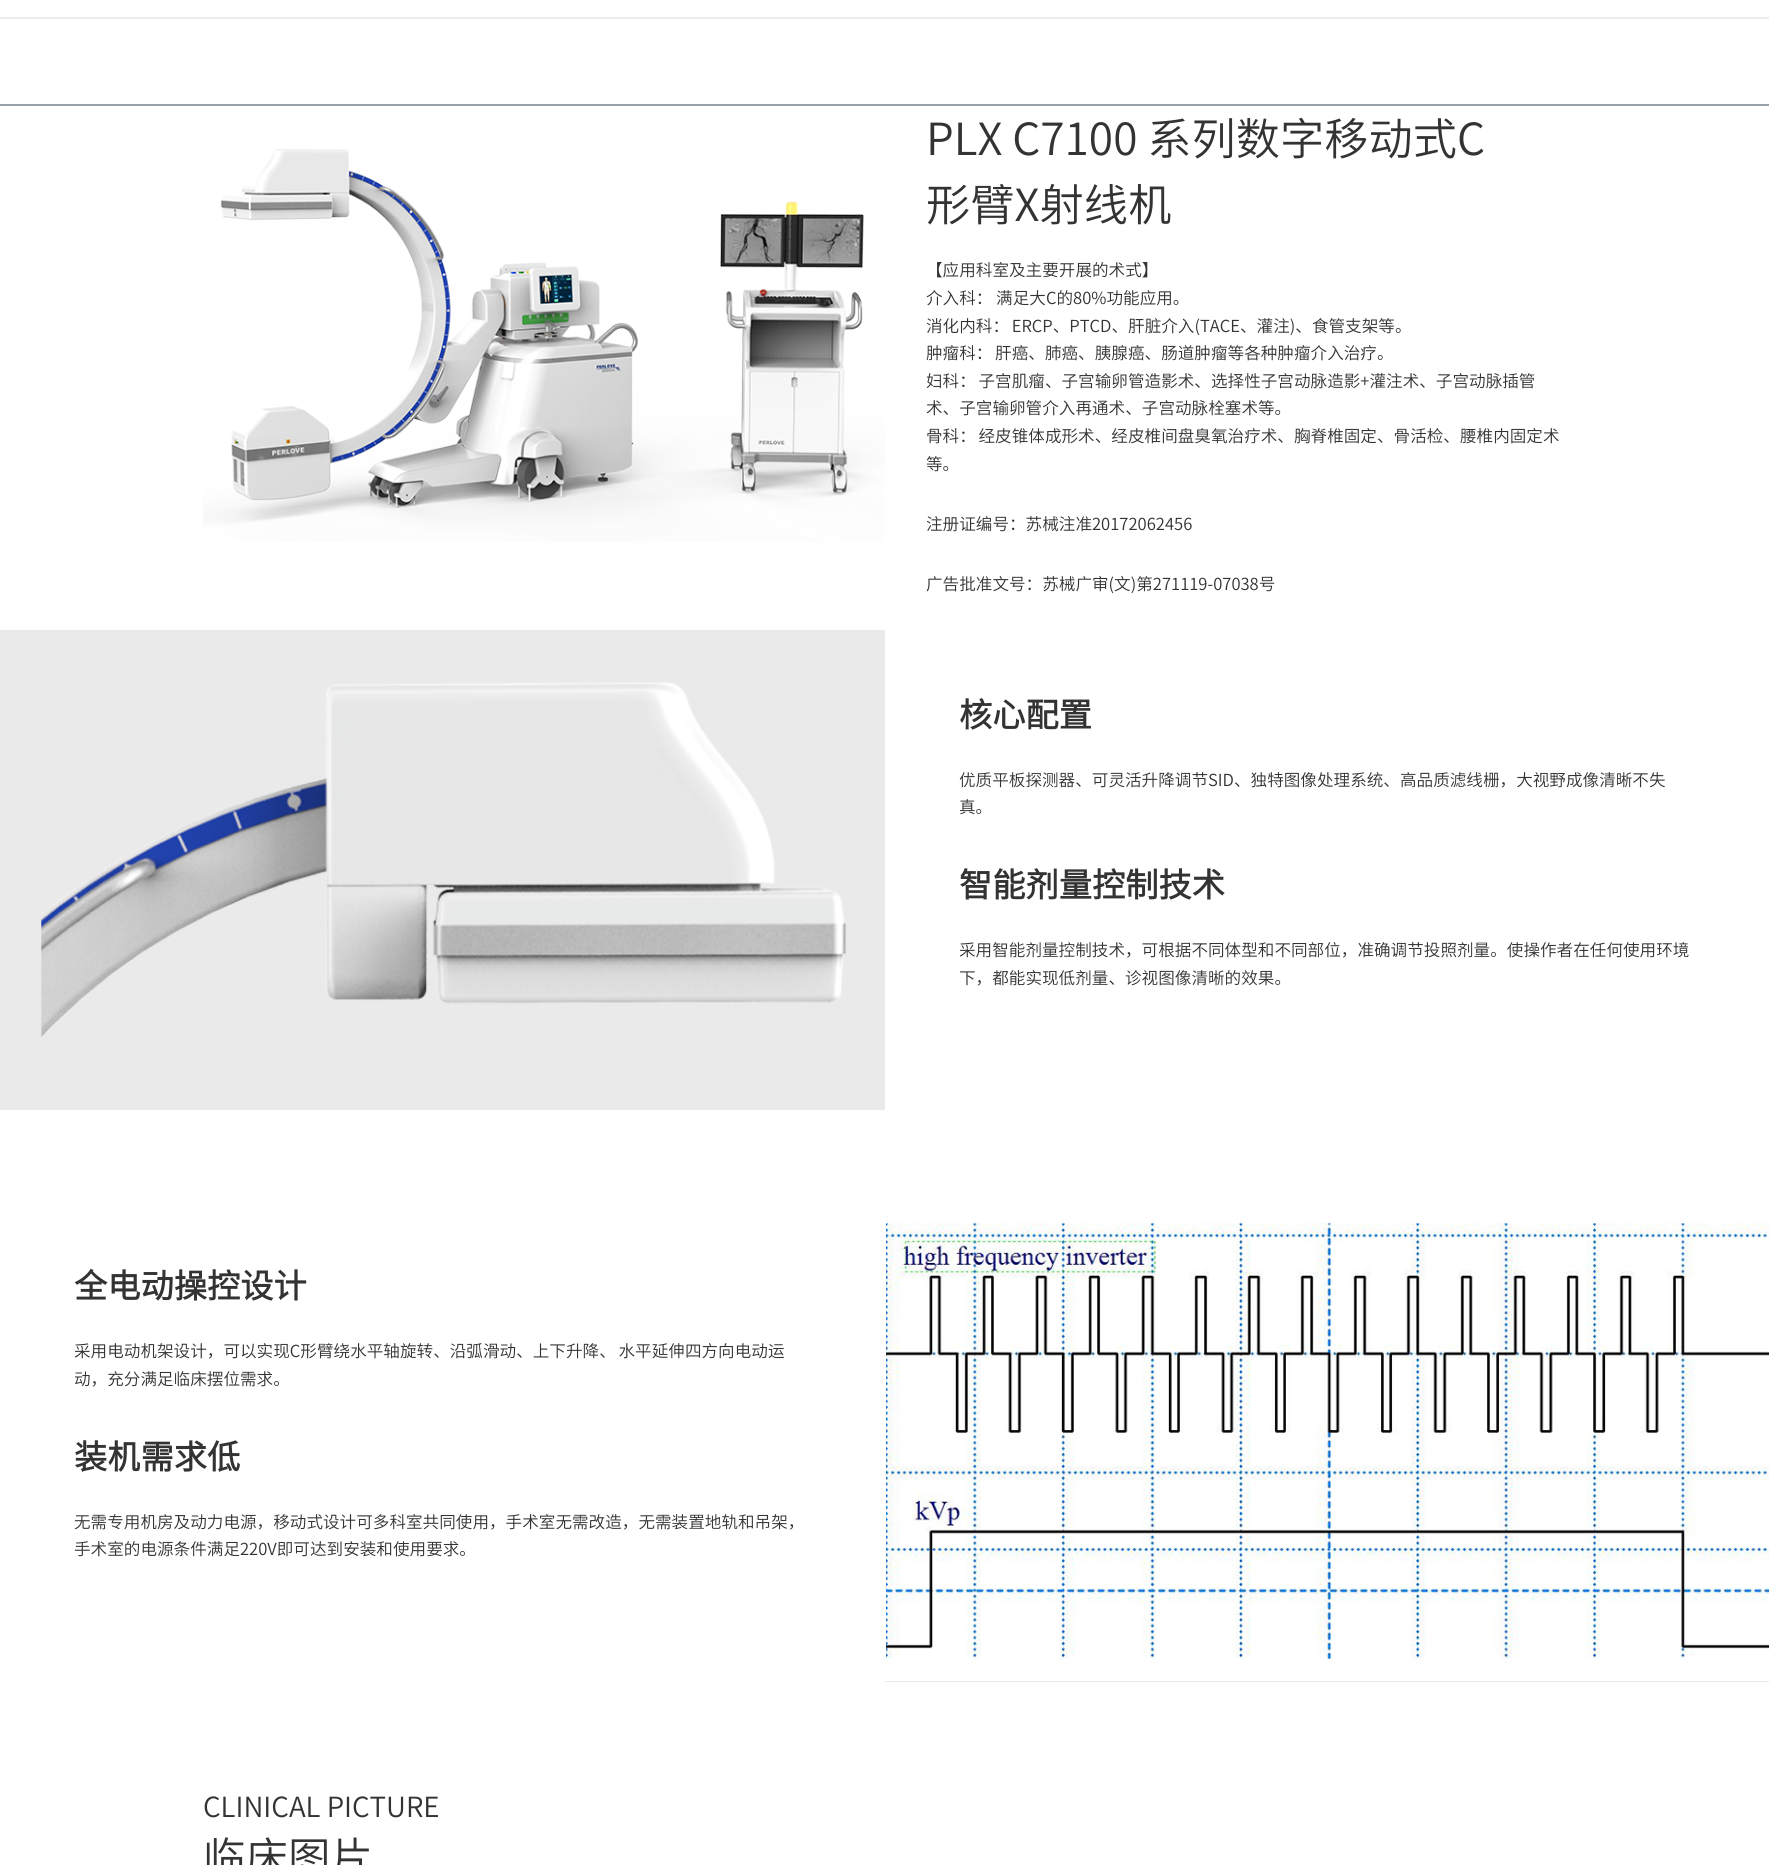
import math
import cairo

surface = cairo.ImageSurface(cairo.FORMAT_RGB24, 1769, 1865)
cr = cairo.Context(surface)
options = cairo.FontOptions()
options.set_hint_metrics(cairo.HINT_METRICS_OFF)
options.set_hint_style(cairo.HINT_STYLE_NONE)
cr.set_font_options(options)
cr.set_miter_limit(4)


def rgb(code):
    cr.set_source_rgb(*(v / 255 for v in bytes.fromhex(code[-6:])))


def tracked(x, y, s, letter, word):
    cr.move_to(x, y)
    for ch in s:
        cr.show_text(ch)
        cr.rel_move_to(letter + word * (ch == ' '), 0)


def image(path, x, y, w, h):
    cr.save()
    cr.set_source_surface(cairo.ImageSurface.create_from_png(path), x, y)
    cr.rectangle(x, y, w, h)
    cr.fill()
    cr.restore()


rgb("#ffffff")
cr.paint()
rgb("#ececec")
cr.rectangle(0, 17, 1769, 2)
cr.fill()
rgb("#9aa2a9")
cr.rectangle(0, 104, 1769, 2)
cr.fill()
image("img/1.png", 203, 149, 682, 393)
rgb("#eaeaea")
cr.rectangle(0, 630, 885, 480)
cr.fill()
image("img/2.png", 41, 682, 806, 355)
cr.rectangle(885, 1681, 884, 1)
cr.fill()
image("img/3.png", 885, 1202, 884, 479)
cr.select_font_face("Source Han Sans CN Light")
cr.set_font_size(44.25)
rgb("#333333")
cr.move_to(926, 155)
cr.show_text("PLX C7100 系列数字移动式C")
cr.move_to(926, 221)
cr.show_text("形臂X射线机")
cr.set_font_size(16.6)
cr.move_to(926, 276)
cr.show_text("【应用科室及主要开展的术式】")
cr.move_to(926, 304)
cr.show_text("介入科： 满足大C的80%功能应用。")
for x, y, s in [
    (926, 332, "消化内科： ERCP、PTCD、肝脏介入(TACE、灌注)、食管支架等。"),
    (926, 359, "肿瘤科： 肝癌、肺癌、胰腺癌、肠道肿瘤等各种肿瘤介入治疗。"),
    (926, 387, "妇科： 子宫肌瘤、子宫输卵管造影术、选择性子宫动脉造影+灌注术、子宫动脉插管"),
]:
    tracked(x, y, s, 0, -1)
cr.move_to(926, 414)
cr.show_text("术、子宫输卵管介入再通术、子宫动脉栓塞术等。")
tracked(926, 442, "骨科： 经皮锥体成形术、经皮椎间盘臭氧治疗术、胸脊椎固定、骨活检、腰椎内固定术", 0, -1)
for x, y, s in [
    (926, 470, "等。"),
    (926, 530, "注册证编号：苏械注准20172062456"),
    (926, 590, "广告批准文号：苏械广审(文)第271119-07038号"),
]:
    cr.move_to(x, y)
    cr.show_text(s)
cr.select_font_face("Source Han Sans CN", cairo.FONT_SLANT_NORMAL, cairo.FONT_WEIGHT_BOLD)
cr.set_font_size(33.25)
cr.move_to(959, 727)
cr.show_text("核心配置")
cr.select_font_face("Source Han Sans CN Light")
cr.set_font_size(16.6)
cr.move_to(959, 786)
cr.show_text("优质平板探测器、可灵活升降调节SID、独特图像处理系统、高品质滤线栅，大视野成像清晰不失")
cr.move_to(959, 813)
cr.show_text("真。")
cr.select_font_face("Source Han Sans CN", cairo.FONT_SLANT_NORMAL, cairo.FONT_WEIGHT_BOLD)
cr.set_font_size(33.25)
cr.move_to(959, 897)
cr.show_text("智能剂量控制技术")
cr.select_font_face("Source Han Sans CN Light")
cr.set_font_size(16.6)
cr.move_to(959, 956)
cr.show_text("采用智能剂量控制技术，可根据不同体型和不同部位，准确调节投照剂量。使操作者在任何使用环境")
cr.move_to(959, 984)
cr.show_text("下，都能实现低剂量、诊视图像清晰的效果。")
cr.select_font_face("Source Han Sans CN", cairo.FONT_SLANT_NORMAL, cairo.FONT_WEIGHT_BOLD)
cr.set_font_size(33.25)
cr.move_to(74, 1298)
cr.show_text("全电动操控设计")
cr.select_font_face("Source Han Sans CN Light")
cr.set_font_size(16.6)
tracked(74, 1357, "采用电动机架设计，可以实现C形臂绕水平轴旋转、沿弧滑动、上下升降、 水平延伸四方向电动运", 0, -1)
cr.move_to(74, 1385)
cr.show_text("动，充分满足临床摆位需求。")
cr.select_font_face("Source Han Sans CN", cairo.FONT_SLANT_NORMAL, cairo.FONT_WEIGHT_BOLD)
cr.set_font_size(33.25)
cr.move_to(74, 1469)
cr.show_text("装机需求低")
cr.select_font_face("Source Han Sans CN Light")
cr.set_font_size(16.6)
cr.move_to(74, 1528)
cr.show_text("无需专用机房及动力电源，移动式设计可多科室共同使用，手术室无需改造，无需装置地轨和吊架，")
cr.move_to(74, 1555)
cr.show_text("手术室的电源条件满足220V即可达到安装和使用要求。")
cr.set_font_size(27.75)
cr.move_to(203, 1817)
cr.show_text("CLINICAL PICTURE")
cr.set_font_size(42.5)
cr.move_to(203, 1873)
cr.show_text("临床图片")
surface.write_to_png("page.png")
